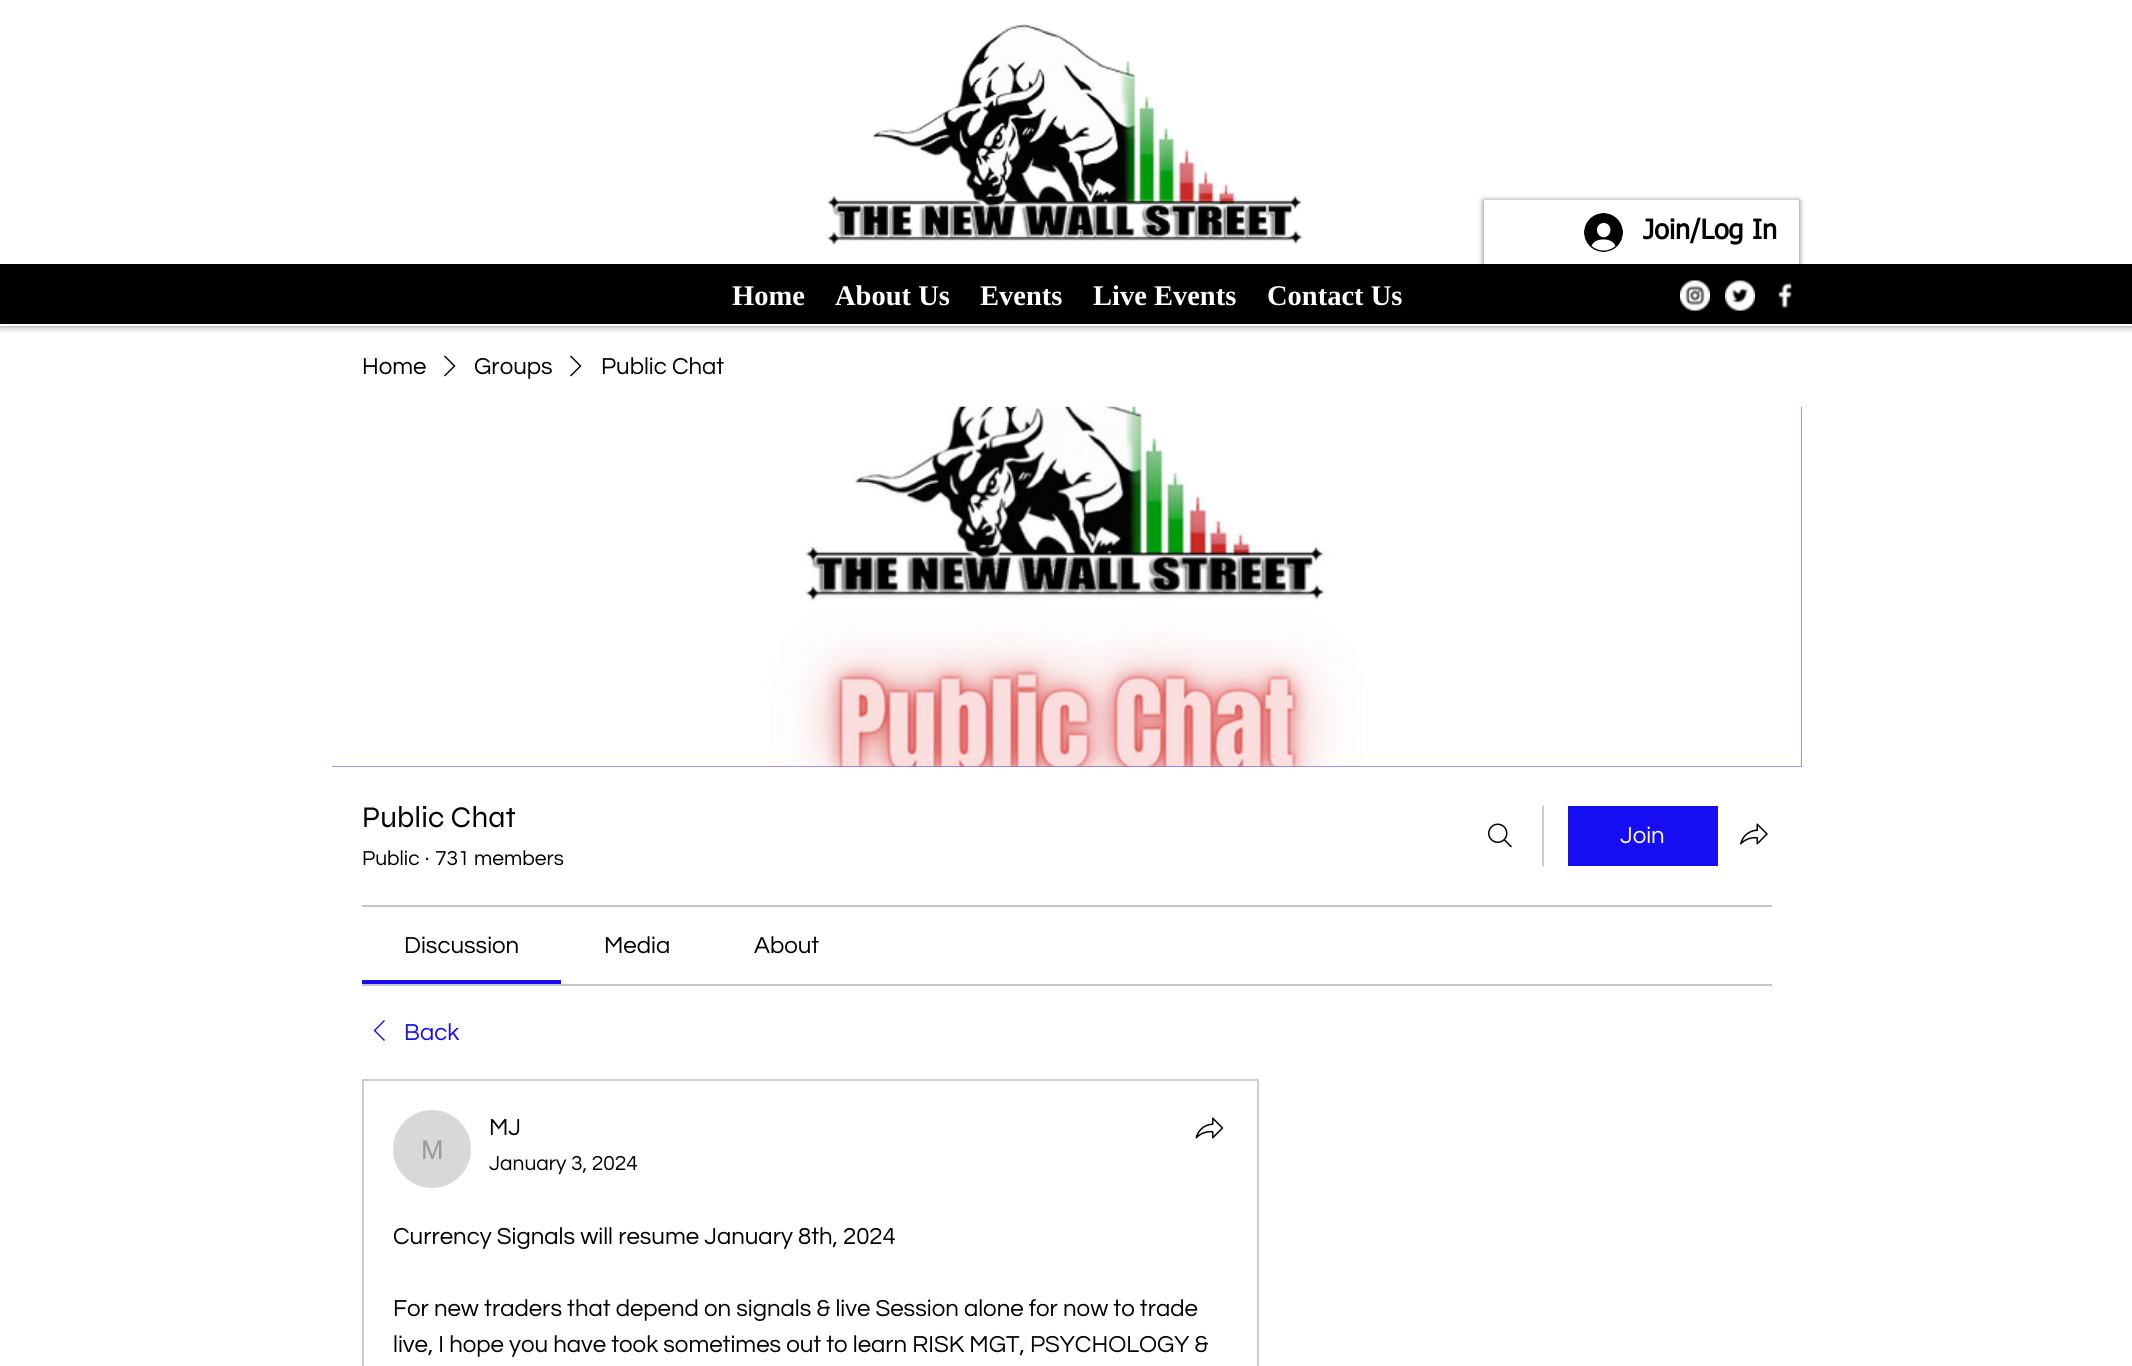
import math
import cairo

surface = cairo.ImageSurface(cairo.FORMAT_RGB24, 2132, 1366)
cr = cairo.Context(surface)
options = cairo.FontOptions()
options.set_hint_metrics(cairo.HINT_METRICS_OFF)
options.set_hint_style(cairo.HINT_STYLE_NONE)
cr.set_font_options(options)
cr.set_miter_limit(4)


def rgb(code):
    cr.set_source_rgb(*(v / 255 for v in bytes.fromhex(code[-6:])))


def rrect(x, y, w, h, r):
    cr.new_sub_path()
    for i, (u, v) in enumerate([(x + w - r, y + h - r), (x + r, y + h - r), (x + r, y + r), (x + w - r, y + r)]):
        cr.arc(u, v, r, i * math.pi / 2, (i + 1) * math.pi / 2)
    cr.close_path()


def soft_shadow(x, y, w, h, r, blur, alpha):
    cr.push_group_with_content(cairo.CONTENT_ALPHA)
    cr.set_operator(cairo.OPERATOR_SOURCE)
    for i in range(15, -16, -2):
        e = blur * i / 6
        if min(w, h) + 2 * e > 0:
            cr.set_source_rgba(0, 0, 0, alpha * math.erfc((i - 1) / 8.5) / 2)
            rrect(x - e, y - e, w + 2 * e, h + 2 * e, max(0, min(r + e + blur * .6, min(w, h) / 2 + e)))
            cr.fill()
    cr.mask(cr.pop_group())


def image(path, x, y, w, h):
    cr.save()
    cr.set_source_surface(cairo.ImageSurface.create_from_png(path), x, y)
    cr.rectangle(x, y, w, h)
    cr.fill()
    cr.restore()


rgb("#ffffff")
cr.paint()
cr.save()
cr.set_fill_rule(cairo.FILL_RULE_EVEN_ODD)
cr.new_path()
cr.move_to(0, 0)
cr.line_to(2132, 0)
cr.line_to(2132, 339)
cr.line_to(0, 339)
cr.close_path()
cr.move_to(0, 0)
cr.line_to(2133, 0)
cr.line_to(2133, 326)
cr.line_to(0, 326)
cr.close_path()
cr.clip()
rgb("#000000")
soft_shadow(0, 0, 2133, 326, 0, 4, 0.5)
cr.restore()
cr.set_source_rgba(1, 1, 1, 0.6)
cr.rectangle(0, 325, 2132, 1)
cr.fill()
image("img/1.png", 827, 24, 476, 221)
rgb("#000000")
soft_shadow(1484, 201, 315, 66, 0, 3, 0.6)
rgb("#ffffff")
cr.rectangle(1484, 200, 315, 64)
cr.fill()
image("img/2.png", 1584, 213, 39, 39)
rgb("#000000")
cr.rectangle(0, 264, 2132, 60)
cr.fill()
image("img/3.png", 1680, 280, 30, 31)
image("img/4.png", 1725, 280, 30, 31)
image("img/5.png", 1778, 282, 14, 27)
cr.set_fill_rule(cairo.FILL_RULE_EVEN_ODD)
cr.new_path()
cr.move_to(445, 355.5)
cr.line_to(455.5, 366)
cr.line_to(445, 376.5)
cr.line_to(444, 375.5)
cr.line_to(453.5, 366)
cr.line_to(444, 356.5)
cr.close_path()
cr.fill()
cr.new_path()
cr.move_to(571, 355.5)
cr.line_to(581.5, 366)
cr.line_to(571, 376.5)
cr.line_to(570, 375.5)
cr.line_to(579.5, 366)
cr.line_to(570, 356.5)
cr.close_path()
cr.fill()
rgb("#746ef8")
cr.rectangle(332, 407, 1470, 360)
cr.fill()
image("img/6.png", 332, 406, 1470, 361)
image("img/7.png", 1488, 823, 24, 25)
rgb("#cccccc")
cr.rectangle(1542, 806, 2, 60)
cr.fill()
rgb("#170df2")
cr.rectangle(1568, 806, 150, 60)
cr.fill()
image("img/8.png", 1740, 823, 28, 22)
for x, y, w, h, color in [
    (362, 905, 1410, 2, "#c7c7c7"),
    (362, 984, 1410, 2, "#c7c7c7"),
    (362, 980, 199, 4, "#170df2"),
]:
    rgb(color)
    cr.rectangle(x, y, w, h)
    cr.fill()
cr.new_path()
cr.move_to(384, 1020)
cr.line_to(385, 1021)
cr.line_to(375.5, 1030.5)
cr.line_to(385, 1040)
cr.line_to(384, 1041)
cr.line_to(373.5, 1030.5)
cr.close_path()
cr.fill()
cr.rectangle(363, 1080, 895, 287)
rgb("#cccccc")
cr.stroke()
rgb("#d8d8d8")
cr.arc(432, 1149, 39, 0, 2 * math.pi)
cr.fill()
image("img/9.png", 1195, 1117, 29, 22)
cr.select_font_face("tahoma", cairo.FONT_SLANT_NORMAL, cairo.FONT_WEIGHT_BOLD)
cr.set_font_size(27)
rgb("#000000")
cr.move_to(1643, 239)
cr.show_text("Join/Log In")
cr.select_font_face("Liberation Serif", cairo.FONT_SLANT_NORMAL, cairo.FONT_WEIGHT_BOLD)
cr.set_font_size(28.5)
rgb("#ffffff")
for x, y, s in [
    (732, 305, "Home"),
    (835, 305, "About Us"),
    (980, 305, "Events"),
    (1093, 305, "Live Events"),
    (1267, 305, "Contact Us"),
]:
    cr.move_to(x, y)
    cr.show_text(s)
cr.select_font_face("Questrial")
cr.set_font_size(24)
rgb("#000000")
for x, y, s in [
    (362, 374, "Home"),
    (474, 374, "Groups"),
    (601, 374, "Public Chat"),
]:
    cr.move_to(x, y)
    cr.show_text(s)
cr.select_font_face("Syne")
cr.set_font_size(30)
cr.move_to(362, 827)
cr.show_text("Public Chat")
cr.select_font_face("Questrial")
cr.set_font_size(21)
for x, y, s in [
    (362, 865, "Public"),
    (425, 865, "·"),
    (435, 865, "731 members"),
]:
    cr.move_to(x, y)
    cr.show_text(s)
cr.set_font_size(24)
rgb("#ffffff")
cr.move_to(1620, 843)
cr.show_text("Join")
rgb("#000000")
for x, y, s in [
    (404, 953, "Discussion"),
    (604, 953, "Media"),
    (754, 953, "About"),
]:
    cr.move_to(x, y)
    cr.show_text(s)
rgb("#170df2")
cr.move_to(404, 1040)
cr.show_text("Back")
cr.select_font_face("Liberation Sans")
cr.set_font_size(27)
rgb("#979797")
cr.move_to(421, 1159)
cr.show_text("M")
cr.select_font_face("Questrial")
cr.set_font_size(24)
rgb("#000000")
cr.move_to(489, 1135)
cr.show_text("MJ")
cr.set_font_size(21)
cr.move_to(489, 1170)
cr.show_text("January 3, 2024")
cr.set_font_size(24)
for x, y, s in [
    (393, 1244, "Currency Signals will resume January 8th, 2024"),
    (393, 1316, "For new traders that depend on signals & live Session alone for now to trade"),
    (393, 1352, "live, I hope you have took sometimes out to learn RISK MGT, PSYCHOLOGY &"),
]:
    cr.move_to(x, y)
    cr.show_text(s)
surface.write_to_png("page.png")
